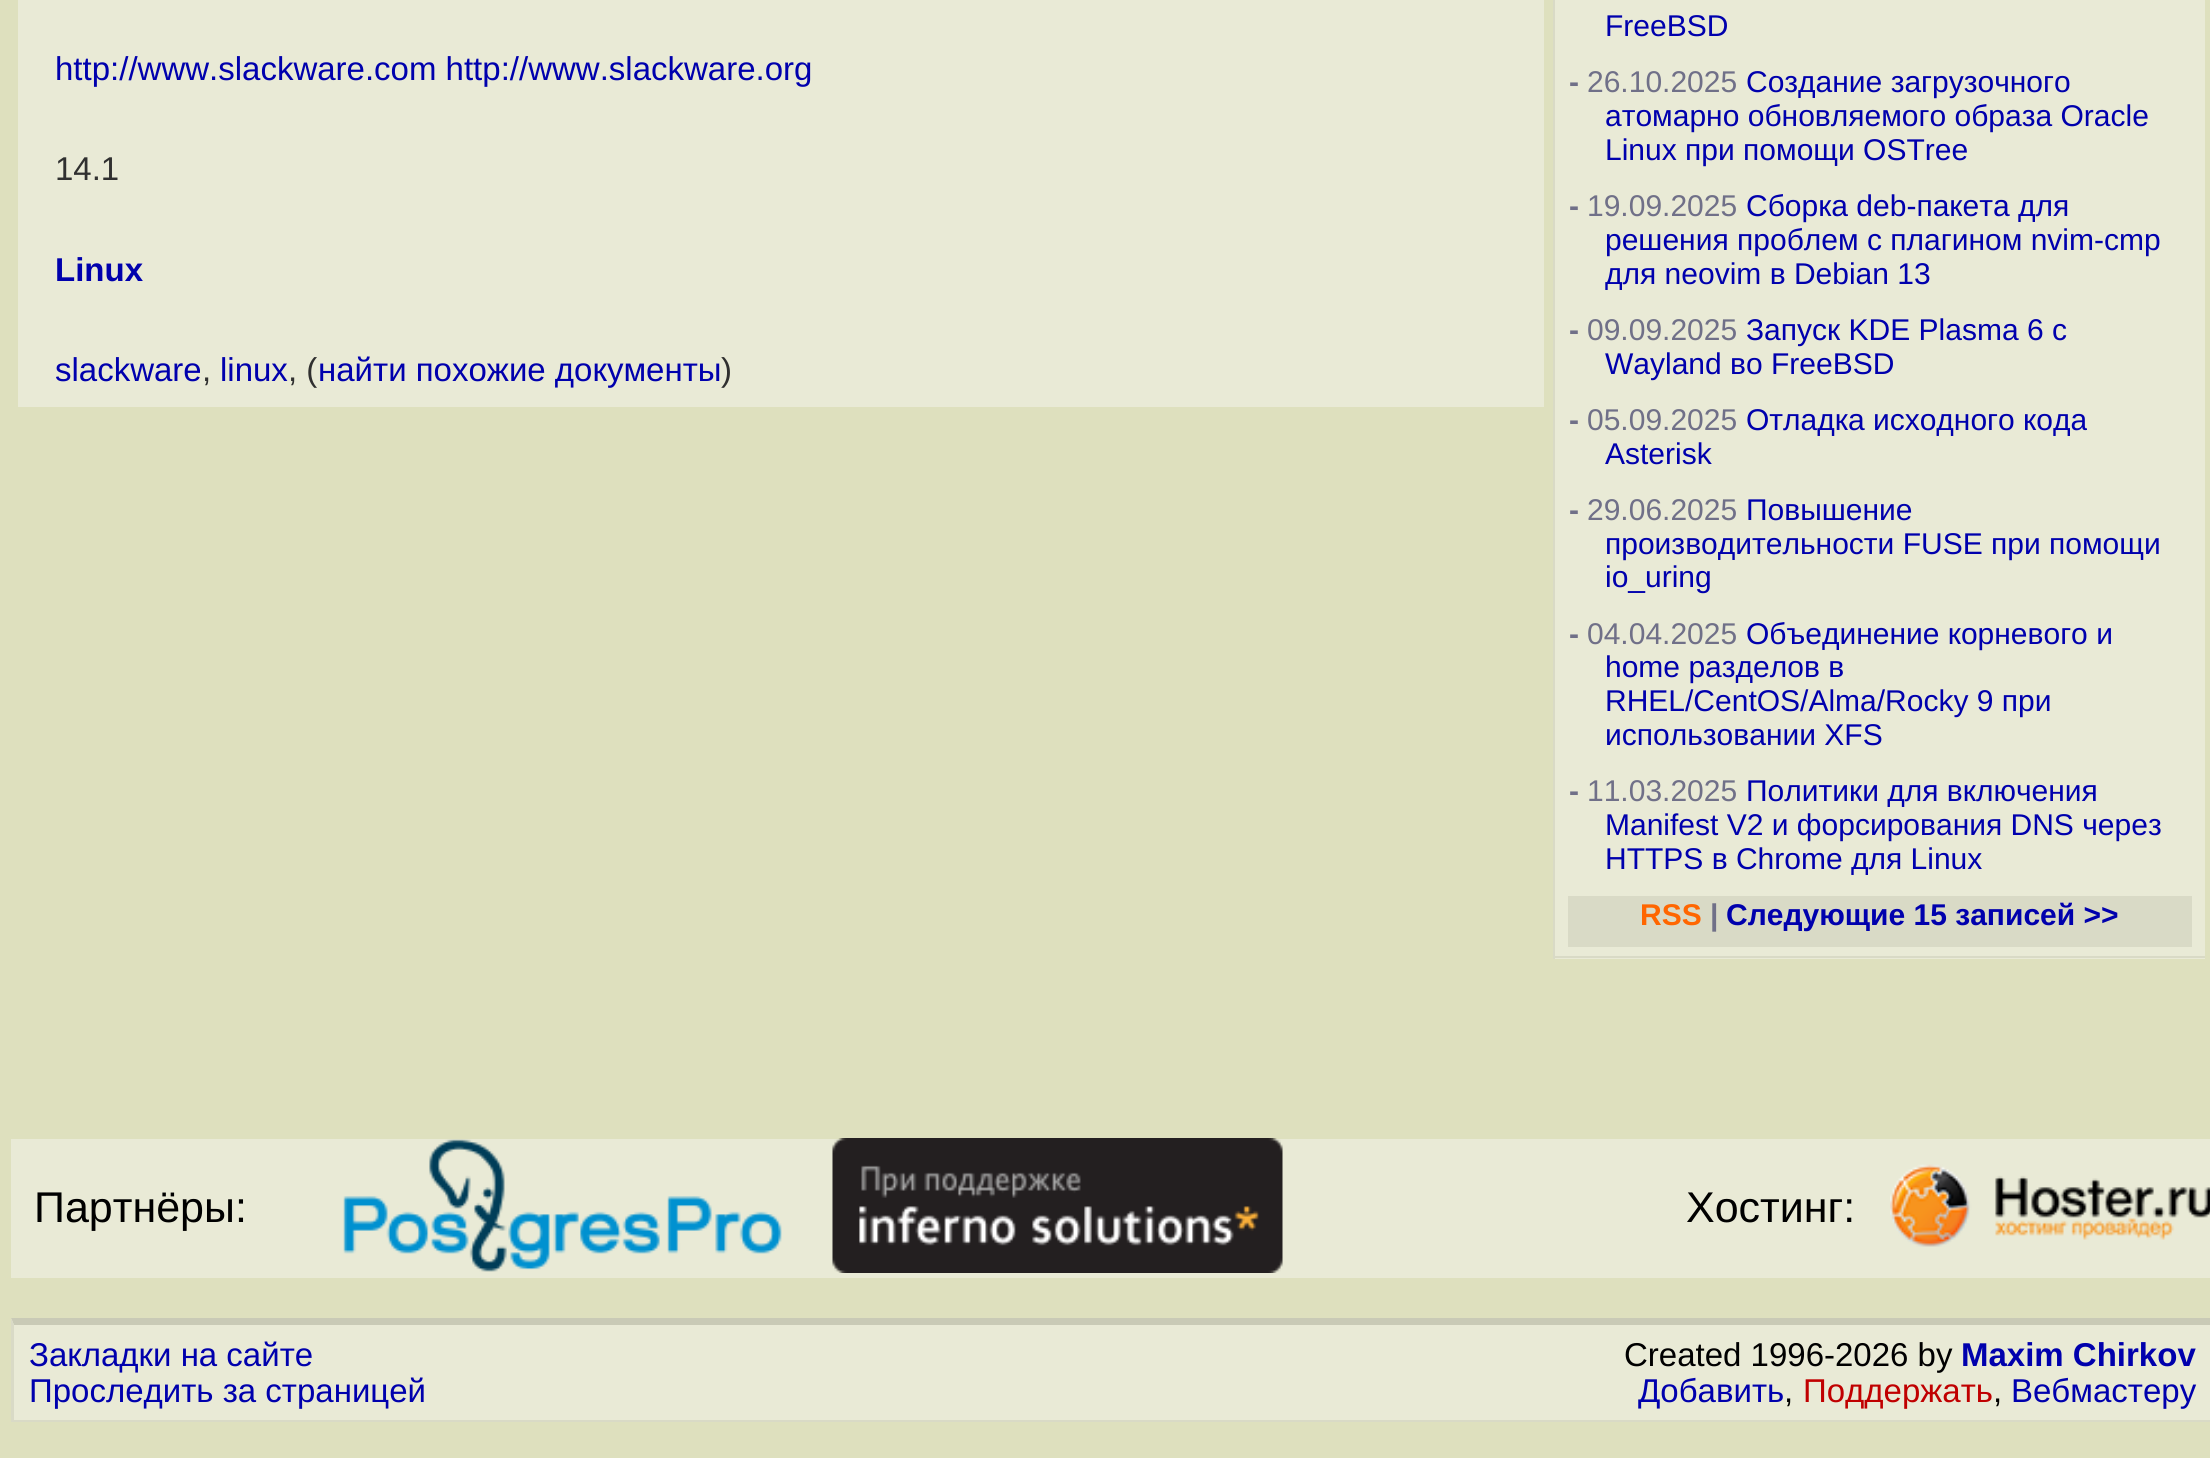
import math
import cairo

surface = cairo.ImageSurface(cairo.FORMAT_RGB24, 2210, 1458)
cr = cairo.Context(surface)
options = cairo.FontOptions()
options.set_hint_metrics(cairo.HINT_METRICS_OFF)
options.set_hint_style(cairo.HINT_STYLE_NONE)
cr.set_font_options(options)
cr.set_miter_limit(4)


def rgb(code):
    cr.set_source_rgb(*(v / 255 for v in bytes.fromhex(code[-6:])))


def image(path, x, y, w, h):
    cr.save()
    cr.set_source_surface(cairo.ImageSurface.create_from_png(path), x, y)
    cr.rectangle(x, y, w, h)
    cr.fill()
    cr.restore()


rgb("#dee0be")
cr.paint()
for x, y, w, h, color in [
    (18, 0, 1526, 407, "#e9ead6"),
    (1555, 0, 650, 959, "#e9ead6"),
    (1553, 956, 652, 2, "#d9dac6"),
    (1553, 0, 2, 959, "#d9dac6"),
    (1568, 896, 624, 51, "#d9dac6"),
    (11, 1139, 2199, 139, "#e9ead6"),
]:
    rgb(color)
    cr.rectangle(x, y, w, h)
    cr.fill()
image("img/1.png", 343, 1139, 439, 133)
image("img/2.png", 832, 1138, 451, 135)
image("img/3.png", 1890, 1164, 320, 83)
cr.rectangle(11, 1319, 2199, 101)
cr.fill()
rgb("#c9cab6")
cr.new_path()
cr.move_to(11, 1318)
cr.line_to(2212, 1318)
cr.line_to(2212, 1325)
cr.line_to(14, 1325)
cr.close_path()
cr.fill()
rgb("#d9dac6")
cr.rectangle(11, 1420, 2199, 2)
cr.fill()
cr.new_path()
cr.move_to(11, 1422)
cr.line_to(11, 1318)
cr.line_to(14, 1325)
cr.line_to(14, 1420)
cr.close_path()
cr.fill()
cr.select_font_face("Liberation Sans")
cr.set_font_size(33)
rgb("#0000ad")
cr.move_to(55, 80)
cr.show_text("http://www.slackware.com http://www.slackware.org")
rgb("#303030")
cr.move_to(55, 180)
cr.show_text("14.1")
cr.select_font_face("Liberation Sans", cairo.FONT_SLANT_NORMAL, cairo.FONT_WEIGHT_BOLD)
rgb("#0000ad")
cr.move_to(55, 281)
cr.show_text("Linux")
cr.select_font_face("Liberation Sans")
cr.move_to(55, 381)
cr.show_text("slackware")
rgb("#303030")
cr.move_to(202, 381)
cr.show_text(",")
rgb("#0000ad")
cr.move_to(220, 381)
cr.show_text("linux")
rgb("#303030")
cr.move_to(288, 381)
cr.show_text(", (")
rgb("#0000ad")
cr.move_to(318, 381)
cr.show_text("найти похожие документы")
rgb("#303030")
cr.move_to(721, 381)
cr.show_text(")")
cr.set_font_size(30)
rgb("#0000ad")
cr.move_to(1605, 36)
cr.show_text("FreeBSD")
cr.select_font_face("Liberation Sans", cairo.FONT_SLANT_NORMAL, cairo.FONT_WEIGHT_BOLD)
rgb("#707088")
cr.move_to(1569, 92)
cr.show_text("-")
cr.select_font_face("Liberation Sans")
cr.move_to(1587, 92)
cr.show_text("26.10.2025")
rgb("#0000ad")
for x, y, s in [
    (1746, 92, "Создание загрузочного"),
    (1605, 126, "атомарно обновляемого образа Oracle"),
    (1605, 160, "Linux при помощи OSTree"),
]:
    cr.move_to(x, y)
    cr.show_text(s)
cr.select_font_face("Liberation Sans", cairo.FONT_SLANT_NORMAL, cairo.FONT_WEIGHT_BOLD)
rgb("#707088")
cr.move_to(1569, 216)
cr.show_text("-")
cr.select_font_face("Liberation Sans")
cr.move_to(1587, 216)
cr.show_text("19.09.2025")
rgb("#0000ad")
for x, y, s in [
    (1746, 216, "Сборка deb-пакета для"),
    (1605, 250, "решения проблем с плагином nvim-cmp"),
    (1605, 284, "для neovim в Debian 13"),
]:
    cr.move_to(x, y)
    cr.show_text(s)
cr.select_font_face("Liberation Sans", cairo.FONT_SLANT_NORMAL, cairo.FONT_WEIGHT_BOLD)
rgb("#707088")
cr.move_to(1569, 340)
cr.show_text("-")
cr.select_font_face("Liberation Sans")
cr.move_to(1587, 340)
cr.show_text("09.09.2025")
rgb("#0000ad")
cr.move_to(1746, 340)
cr.show_text("Запуск KDE Plasma 6 с")
cr.move_to(1605, 374)
cr.show_text("Wayland во FreeBSD")
cr.select_font_face("Liberation Sans", cairo.FONT_SLANT_NORMAL, cairo.FONT_WEIGHT_BOLD)
rgb("#707088")
cr.move_to(1569, 430)
cr.show_text("-")
cr.select_font_face("Liberation Sans")
cr.move_to(1587, 430)
cr.show_text("05.09.2025")
rgb("#0000ad")
cr.move_to(1746, 430)
cr.show_text("Отладка исходного кода")
cr.move_to(1605, 464)
cr.show_text("Asterisk")
cr.select_font_face("Liberation Sans", cairo.FONT_SLANT_NORMAL, cairo.FONT_WEIGHT_BOLD)
rgb("#707088")
cr.move_to(1569, 520)
cr.show_text("-")
cr.select_font_face("Liberation Sans")
cr.move_to(1587, 520)
cr.show_text("29.06.2025")
rgb("#0000ad")
for x, y, s in [
    (1746, 520, "Повышение"),
    (1605, 554, "производительности FUSE при помощи"),
    (1605, 587, "io_uring"),
]:
    cr.move_to(x, y)
    cr.show_text(s)
cr.select_font_face("Liberation Sans", cairo.FONT_SLANT_NORMAL, cairo.FONT_WEIGHT_BOLD)
rgb("#707088")
cr.move_to(1569, 644)
cr.show_text("-")
cr.select_font_face("Liberation Sans")
cr.move_to(1587, 644)
cr.show_text("04.04.2025")
rgb("#0000ad")
for x, y, s in [
    (1746, 644, "Объединение корневого и"),
    (1605, 677, "home разделов в"),
    (1605, 711, "RHEL/CentOS/Alma/Rocky 9 при"),
    (1605, 745, "использовании XFS"),
]:
    cr.move_to(x, y)
    cr.show_text(s)
cr.select_font_face("Liberation Sans", cairo.FONT_SLANT_NORMAL, cairo.FONT_WEIGHT_BOLD)
rgb("#707088")
cr.move_to(1569, 801)
cr.show_text("-")
cr.select_font_face("Liberation Sans")
cr.move_to(1587, 801)
cr.show_text("11.03.2025")
rgb("#0000ad")
for x, y, s in [
    (1746, 801, "Политики для включения"),
    (1605, 835, "Manifest V2 и форсирования DNS через"),
    (1605, 869, "HTTPS в Chrome для Linux"),
]:
    cr.move_to(x, y)
    cr.show_text(s)
cr.select_font_face("Liberation Sans", cairo.FONT_SLANT_NORMAL, cairo.FONT_WEIGHT_BOLD)
rgb("#ff6600")
cr.move_to(1640, 925)
cr.show_text("RSS")
rgb("#707088")
cr.move_to(1710, 925)
cr.show_text("|")
rgb("#0000ad")
cr.move_to(1726, 925)
cr.show_text("Следующие 15 записей >>")
cr.select_font_face("Liberation Sans")
cr.set_font_size(43)
rgb("#000000")
cr.move_to(34, 1222)
cr.show_text("Партнёры:")
cr.move_to(1686, 1222)
cr.show_text("Хостинг:")
cr.set_font_size(33)
rgb("#0000ad")
cr.move_to(29, 1366)
cr.show_text("Закладки на сайте")
cr.move_to(29, 1402)
cr.show_text("Проследить за страницей")
rgb("#000000")
cr.move_to(1624, 1366)
cr.show_text("Created 1996-2026 by")
cr.select_font_face("Liberation Sans", cairo.FONT_SLANT_NORMAL, cairo.FONT_WEIGHT_BOLD)
rgb("#0000ad")
cr.move_to(1961, 1366)
cr.show_text("Maxim Chirkov")
cr.select_font_face("Liberation Sans")
cr.move_to(1638, 1402)
cr.show_text("Добавить")
rgb("#000000")
cr.move_to(1784, 1402)
cr.show_text(",")
rgb("#c00000")
cr.move_to(1803, 1402)
cr.show_text("Поддержать")
rgb("#000000")
cr.move_to(1993, 1402)
cr.show_text(",")
rgb("#0000ad")
cr.move_to(2011, 1402)
cr.show_text("Вебмастеру")
surface.write_to_png("page.png")
